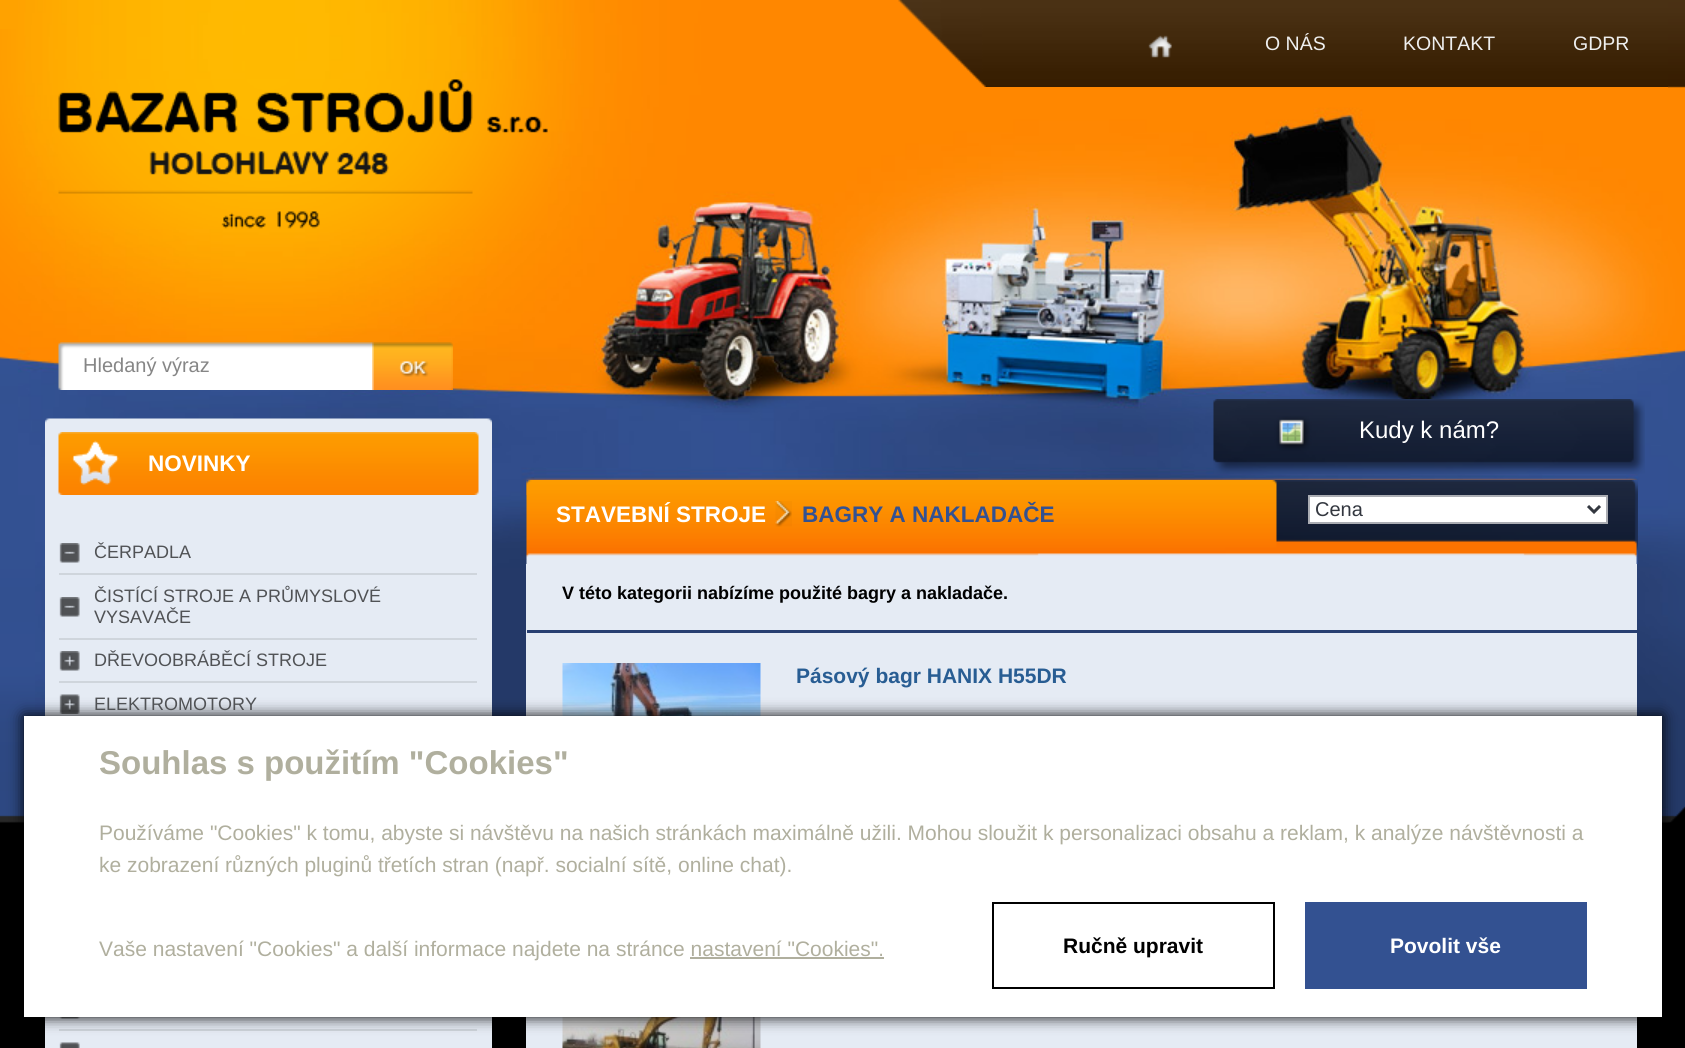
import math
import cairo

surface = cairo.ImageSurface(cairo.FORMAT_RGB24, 1685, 1048)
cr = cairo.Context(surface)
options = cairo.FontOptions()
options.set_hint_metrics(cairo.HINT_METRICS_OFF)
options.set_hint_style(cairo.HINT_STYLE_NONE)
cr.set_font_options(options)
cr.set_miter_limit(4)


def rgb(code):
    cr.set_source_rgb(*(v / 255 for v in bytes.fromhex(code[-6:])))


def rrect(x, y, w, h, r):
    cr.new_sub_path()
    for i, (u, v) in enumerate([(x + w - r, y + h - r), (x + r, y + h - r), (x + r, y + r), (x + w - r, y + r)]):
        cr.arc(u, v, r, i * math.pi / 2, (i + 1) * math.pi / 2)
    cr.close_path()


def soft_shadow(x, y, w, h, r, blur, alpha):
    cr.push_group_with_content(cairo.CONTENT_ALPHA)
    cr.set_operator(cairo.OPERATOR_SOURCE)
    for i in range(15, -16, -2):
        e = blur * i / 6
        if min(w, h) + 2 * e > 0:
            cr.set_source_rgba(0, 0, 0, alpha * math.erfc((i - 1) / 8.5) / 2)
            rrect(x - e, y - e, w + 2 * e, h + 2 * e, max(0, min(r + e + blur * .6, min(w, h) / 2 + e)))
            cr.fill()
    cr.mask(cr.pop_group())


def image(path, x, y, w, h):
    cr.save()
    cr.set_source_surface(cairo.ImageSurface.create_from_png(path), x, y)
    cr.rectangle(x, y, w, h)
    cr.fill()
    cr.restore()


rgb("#000000")
cr.paint()
image("img/1.png", 0, 0, 1668, 823)
image("img/2.png", 0, 29, 18, 332)
image("img/3.png", 18, 0, 1650, 495)
image("img/4.png", 898, 0, 770, 87)
image("img/5.png", 1148, 35, 24, 23)
image("img/6.png", 58, 79, 490, 150)
image("img/7.png", 58, 342, 314, 48)
image("img/8.png", 372, 342, 81, 48)
image("img/9.png", 1213, 399, 432, 75)
image("img/10.png", 1668, 0, 17, 823)
image("img/11.png", 35, 495, 1633, 327)
image("img/12.png", 45, 418, 447, 90)
image("img/13.png", 58, 432, 421, 63)
rgb("#e5ebf4")
cr.rectangle(45, 508, 447, 540)
cr.fill()
rgb("#cfd5dc")
cr.rectangle(59, 573, 418, 2)
cr.fill()
image("img/14.png", 59, 543, 21, 20)
cr.rectangle(59, 638, 418, 2)
cr.fill()
image("img/14.png", 59, 597, 21, 20)
cr.rectangle(59, 681, 418, 2)
cr.fill()
image("img/15.png", 59, 651, 21, 20)
image("img/16.png", 59, 694, 21, 20)
cr.rectangle(59, 1029, 418, 2)
cr.fill()
image("img/17.png", 59, 1017, 21, 2)
image("img/18.png", 59, 1042, 21, 6)
image("img/19.png", 526, 480, 1112, 84)
image("img/20.png", 775, 501, 17, 26)
rgb("#ffffff")
cr.rectangle(1309, 496, 298, 27)
cr.fill_preserve()
rgb("#abadb3")
cr.stroke()
cr.new_path()
cr.move_to(1588, 506)
cr.line_to(1594, 512)
cr.line_to(1600, 506)
rgb("#33373f")
cr.set_line_width(3)
cr.stroke()
rgb("#e5ebf4")
cr.rectangle(526, 564, 1111, 484)
cr.fill()
rgb("#283f71")
cr.rectangle(527, 630, 1110, 3)
cr.fill()
image("img/21.png", 562, 663, 199, 53)
image("img/22.png", 562, 1017, 199, 31)
rgb("#000000")
soft_shadow(24, 716, 1638, 301, 0, 7.5, 1)
rgb("#ffffff")
cr.rectangle(24, 716, 1638, 301)
cr.fill()
rgb("#b0af9e")
cr.rectangle(690, 957, 194, 2)
cr.fill()
cr.rectangle(993, 903, 281, 85)
rgb("#000000")
cr.set_line_width(2)
cr.stroke()
rgb("#335191")
cr.rectangle(1305, 902, 282, 87)
cr.fill()
cr.select_font_face("Liberation Sans")
cr.set_font_size(19.5)
rgb("#eeeeee")
for x, y, s in [
    (1265, 50, "O NÁS"),
    (1403, 50, "KONTAKT"),
    (1573, 50, "GDPR"),
]:
    cr.move_to(x, y)
    cr.show_text(s)
cr.set_font_size(20)
rgb("#868686")
cr.move_to(83, 372)
cr.show_text("Hledaný výraz")
cr.set_font_size(24)
rgb("#ffffff")
cr.move_to(1359, 438)
cr.show_text("Kudy k nám?")
cr.select_font_face("Liberation Sans", cairo.FONT_SLANT_NORMAL, cairo.FONT_WEIGHT_BOLD)
cr.set_font_size(22.5)
cr.move_to(148, 471)
cr.show_text("NOVINKY")
cr.select_font_face("Liberation Sans")
cr.set_font_size(18)
rgb("#505255")
for x, y, s in [
    (94, 558, "ČERPADLA"),
    (94, 602, "ČISTÍCÍ STROJE A PRŮMYSLOVÉ"),
    (94, 623, "VYSAVAČE"),
    (94, 666, "DŘEVOOBRÁBĚCÍ STROJE"),
    (94, 710, "ELEKTROMOTORY"),
]:
    cr.move_to(x, y)
    cr.show_text(s)
cr.select_font_face("Liberation Sans", cairo.FONT_SLANT_NORMAL, cairo.FONT_WEIGHT_BOLD)
cr.set_font_size(22.5)
rgb("#ffffff")
cr.move_to(556, 522)
cr.show_text("STAVEBNÍ STROJE")
rgb("#335192")
cr.move_to(802, 522)
cr.show_text("BAGRY A NAKLADAČE")
cr.save()
cr.rectangle(1316, 497, 267, 25)
cr.clip()
cr.select_font_face("Liberation Sans")
cr.set_font_size(20)
rgb("#33373f")
cr.move_to(1315, 516)
cr.show_text("Cena")
cr.restore()
cr.set_font_size(18)
rgb("#000000")
cr.move_to(562, 599)
cr.show_text("V této kategorii nabízíme použité bagry a nakladače.")
cr.set_font_size(21)
rgb("#285d93")
cr.move_to(796, 683)
cr.show_text("Pásový bagr HANIX H55DR")
cr.set_font_size(33)
rgb("#b0af9e")
cr.move_to(99, 774)
cr.show_text("Souhlas s použitím \"Cookies\"")
cr.select_font_face("Liberation Sans")
cr.set_font_size(21)
for x, y, s in [
    (99, 840, "Používáme \"Cookies\" k tomu, abyste si návštěvu na našich stránkách maximálně užili. Mohou sloužit k personalizaci obsahu a reklam, k analýze návštěvnosti a"),
    (99, 872, "ke zobrazení různých pluginů třetích stran (např. socialní sítě, online chat)."),
    (99, 956, "Vaše nastavení \"Cookies\" a další informace najdete na stránce nastavení \"Cookies\"."),
]:
    cr.move_to(x, y)
    cr.show_text(s)
cr.select_font_face("Liberation Sans", cairo.FONT_SLANT_NORMAL, cairo.FONT_WEIGHT_BOLD)
rgb("#000000")
cr.move_to(1063, 953)
cr.show_text("Ručně upravit")
rgb("#ffffff")
cr.move_to(1390, 953)
cr.show_text("Povolit vše")
surface.write_to_png("page.png")
